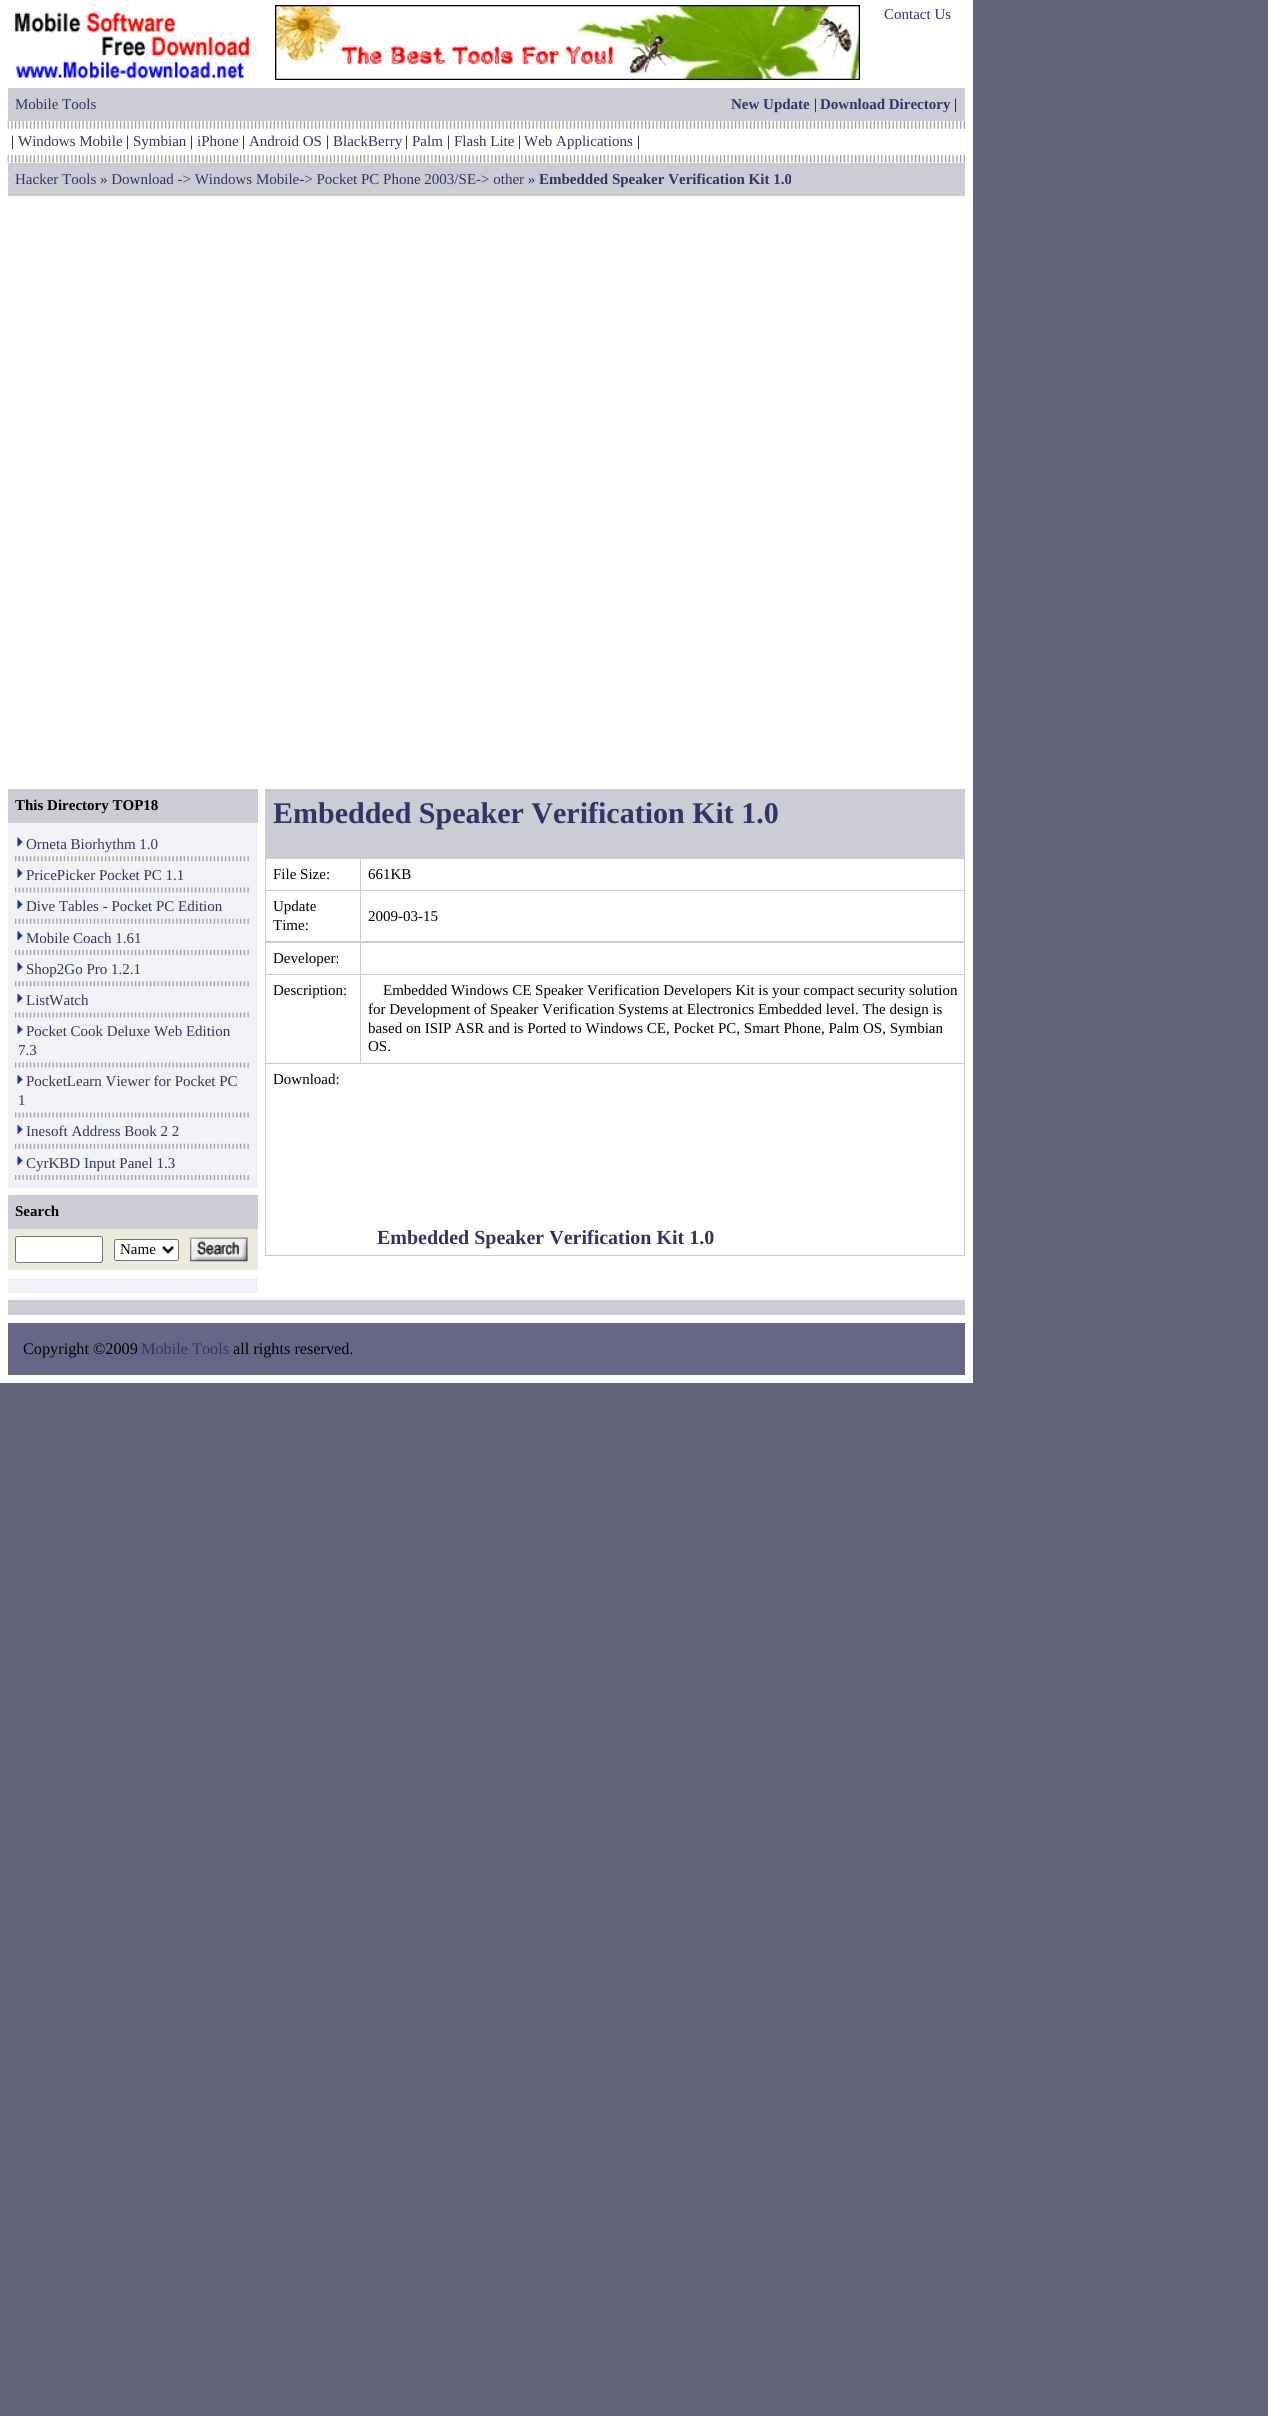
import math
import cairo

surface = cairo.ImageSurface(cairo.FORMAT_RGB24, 1268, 2416)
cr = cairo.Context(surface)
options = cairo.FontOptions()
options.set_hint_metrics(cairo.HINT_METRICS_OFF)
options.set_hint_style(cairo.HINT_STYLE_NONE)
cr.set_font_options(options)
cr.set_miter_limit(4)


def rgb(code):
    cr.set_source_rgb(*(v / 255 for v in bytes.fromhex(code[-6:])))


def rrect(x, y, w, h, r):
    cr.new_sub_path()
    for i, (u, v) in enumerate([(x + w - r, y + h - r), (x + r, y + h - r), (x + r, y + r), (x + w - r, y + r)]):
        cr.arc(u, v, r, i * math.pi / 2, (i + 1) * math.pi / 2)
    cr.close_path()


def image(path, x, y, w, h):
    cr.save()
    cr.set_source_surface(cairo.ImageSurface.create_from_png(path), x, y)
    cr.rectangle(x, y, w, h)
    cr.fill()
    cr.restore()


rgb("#616378")
cr.paint()
rgb("#ffffff")
cr.rectangle(0, 0, 973, 1383)
cr.fill()
image("img/1.png", 14, 12, 235, 67)
image("img/2.png", 275, 5, 585, 75)
rgb("#ccccd4")
cr.rectangle(8, 88, 957, 33)
cr.fill()
image("img/3.png", 7, 121, 958, 8)
image("img/4.png", 7, 155, 958, 8)
for x, y, w, h, color in [
    (8, 163, 957, 33, "#ccccd4"),
    (8, 823, 250, 470, "#f2f3f7"),
    (8, 789, 250, 34, "#ccccd4"),
]:
    rgb(color)
    cr.rectangle(x, y, w, h)
    cr.fill()
image("img/5.png", 17, 837, 6, 10)
image("img/6.png", 15, 856, 234, 6)
image("img/7.png", 17, 868, 6, 10)
image("img/8.png", 15, 887, 234, 6)
image("img/9.png", 17, 899, 6, 10)
image("img/10.png", 15, 918, 234, 6)
image("img/11.png", 17, 931, 6, 10)
image("img/12.png", 15, 950, 234, 5)
image("img/5.png", 17, 962, 6, 10)
image("img/6.png", 15, 981, 234, 6)
image("img/7.png", 17, 993, 6, 10)
image("img/8.png", 15, 1012, 234, 6)
image("img/9.png", 17, 1024, 6, 10)
image("img/8.png", 15, 1062, 234, 6)
image("img/9.png", 17, 1074, 6, 10)
image("img/8.png", 15, 1112, 234, 6)
image("img/9.png", 17, 1124, 6, 10)
image("img/10.png", 15, 1143, 234, 6)
image("img/11.png", 17, 1156, 6, 10)
image("img/12.png", 15, 1175, 234, 5)
for x, y, w, h, color in [
    (8, 1188, 250, 7, "#ffffff"),
    (8, 1195, 250, 34, "#ccccd4"),
    (8, 1229, 250, 41, "#ebeadd"),
]:
    rgb(color)
    cr.rectangle(x, y, w, h)
    cr.fill()
rgb("#ffffff")
rrect(15.5, 1236.5, 87, 26, 2)
cr.fill_preserve()
rgb("#767676")
cr.set_line_width(1)
cr.stroke()
rgb("#ffffff")
rrect(114.5, 1239.5, 64, 21, 2)
cr.fill_preserve()
rgb("#767676")
cr.stroke()
cr.new_path()
cr.move_to(163, 1247)
cr.line_to(168, 1252)
cr.line_to(173, 1247)
rgb("#000000")
cr.set_line_width(2.5)
cr.stroke()
image("img/13.png", 190, 1237, 58, 25)
for x, y, w, h, color in [
    (8, 1270, 250, 8, "#ffffff"),
    (265, 789, 700, 69, "#ccccd4"),
    (265, 858, 700, 398, "#cccccc"),
    (266, 859, 94, 31, "#ffffff"),
    (361, 859, 603, 31, "#ffffff"),
    (266, 891, 94, 50, "#ffffff"),
    (361, 891, 603, 50, "#ffffff"),
    (266, 943, 94, 31, "#ffffff"),
    (361, 943, 603, 31, "#ffffff"),
    (266, 975, 94, 88, "#ffffff"),
    (361, 975, 603, 88, "#ffffff"),
    (266, 1064, 698, 191, "#ffffff"),
    (8, 1300, 957, 15, "#ccccd4"),
    (8, 1323, 957, 52, "#666688"),
]:
    rgb(color)
    cr.rectangle(x, y, w, h)
    cr.fill()
cr.select_font_face("Liberation Serif")
cr.set_font_size(15)
rgb("#333366")
cr.move_to(884, 19)
cr.show_text("Contact Us")
cr.move_to(15, 109)
cr.show_text("Mobile Tools")
cr.select_font_face("Liberation Serif", cairo.FONT_SLANT_NORMAL, cairo.FONT_WEIGHT_BOLD)
cr.move_to(731, 109)
cr.show_text("New Update")
cr.select_font_face("Liberation Serif")
rgb("#000000")
cr.move_to(814, 109)
cr.show_text("|")
cr.select_font_face("Liberation Serif", cairo.FONT_SLANT_NORMAL, cairo.FONT_WEIGHT_BOLD)
rgb("#333366")
cr.move_to(820, 109)
cr.show_text("Download Directory")
cr.select_font_face("Liberation Serif")
rgb("#000000")
cr.move_to(954, 109)
cr.show_text("|")
cr.move_to(11, 146)
cr.show_text("|")
rgb("#333366")
cr.move_to(18, 146)
cr.show_text("Windows Mobile")
rgb("#000000")
cr.move_to(126, 146)
cr.show_text("|")
rgb("#333366")
cr.move_to(133, 146)
cr.show_text("Symbian")
rgb("#000000")
cr.move_to(190, 146)
cr.show_text("|")
rgb("#333366")
cr.move_to(197, 146)
cr.show_text("iPhone")
rgb("#000000")
cr.move_to(242, 146)
cr.show_text("|")
rgb("#333366")
cr.move_to(249, 146)
cr.show_text("Android OS")
rgb("#000000")
cr.move_to(326, 146)
cr.show_text("|")
rgb("#333366")
cr.move_to(333, 146)
cr.show_text("BlackBerry")
rgb("#000000")
cr.move_to(405, 146)
cr.show_text("|")
rgb("#333366")
cr.move_to(412, 146)
cr.show_text("Palm")
rgb("#000000")
cr.move_to(447, 146)
cr.show_text("|")
rgb("#333366")
cr.move_to(454, 146)
cr.show_text("Flash Lite")
rgb("#000000")
cr.move_to(518, 146)
cr.show_text("|")
rgb("#333366")
cr.move_to(524, 146)
cr.show_text("Web Applications")
rgb("#000000")
cr.move_to(637, 146)
cr.show_text("|")
rgb("#333366")
cr.move_to(15, 184)
cr.show_text("Hacker Tools » Download -> Windows Mobile-> Pocket PC Phone 2003/SE-> other »")
cr.select_font_face("Liberation Serif", cairo.FONT_SLANT_NORMAL, cairo.FONT_WEIGHT_BOLD)
cr.move_to(539, 184)
cr.show_text("Embedded Speaker Verification Kit 1.0")
rgb("#000000")
cr.move_to(15, 810)
cr.show_text("This Directory TOP18")
cr.select_font_face("Liberation Serif")
rgb("#333366")
for x, y, s in [
    (26, 849, "Orneta Biorhythm 1.0"),
    (26, 880, "PricePicker Pocket PC 1.1"),
    (26, 911, "Dive Tables - Pocket PC Edition"),
    (26, 943, "Mobile Coach 1.61"),
    (26, 974, "Shop2Go Pro 1.2.1"),
    (26, 1005, "ListWatch"),
    (26, 1036, "Pocket Cook Deluxe Web Edition"),
    (18, 1055, "7.3"),
    (26, 1086, "PocketLearn Viewer for Pocket PC"),
    (18, 1105, "1"),
    (26, 1136, "Inesoft Address Book 2 2"),
    (26, 1168, "CyrKBD Input Panel 1.3"),
]:
    cr.move_to(x, y)
    cr.show_text(s)
cr.select_font_face("Liberation Serif", cairo.FONT_SLANT_NORMAL, cairo.FONT_WEIGHT_BOLD)
rgb("#000000")
cr.move_to(15, 1216)
cr.show_text("Search")
cr.select_font_face("Liberation Serif")
cr.move_to(120, 1254)
cr.show_text("Name")
cr.select_font_face("Liberation Serif", cairo.FONT_SLANT_NORMAL, cairo.FONT_WEIGHT_BOLD)
cr.set_font_size(30)
rgb("#333366")
cr.move_to(273, 823)
cr.show_text("Embedded Speaker Verification Kit 1.0")
cr.select_font_face("Liberation Serif")
cr.set_font_size(15)
rgb("#000000")
for x, y, s in [
    (273, 879, "File Size:"),
    (368, 879, "661KB"),
    (273, 911, "Update"),
    (273, 930, "Time:"),
    (368, 921, "2009-03-15"),
    (273, 963, "Developer:"),
    (273, 995, "Description:"),
    (383, 995, "Embedded Windows CE Speaker Verification Developers Kit is your compact security solution"),
    (368, 1014, "for Development of Speaker Verification Systems at Electronics Embedded level. The design is"),
    (368, 1033, "based on ISIP ASR and is Ported to Windows CE, Pocket PC, Smart Phone, Palm OS, Symbian"),
    (368, 1051, "OS."),
    (273, 1084, "Download:"),
]:
    cr.move_to(x, y)
    cr.show_text(s)
cr.select_font_face("Liberation Serif", cairo.FONT_SLANT_NORMAL, cairo.FONT_WEIGHT_BOLD)
cr.set_font_size(20)
rgb("#333366")
cr.move_to(377, 1244)
cr.show_text("Embedded Speaker Verification Kit 1.0")
cr.select_font_face("Liberation Serif")
cr.set_font_size(16.25)
rgb("#000000")
cr.move_to(23, 1354)
cr.show_text("Copyright ©2009")
rgb("#333366")
cr.move_to(141, 1354)
cr.show_text("Mobile Tools")
rgb("#000000")
cr.move_to(233, 1354)
cr.show_text("all rights reserved.")
surface.write_to_png("page.png")
